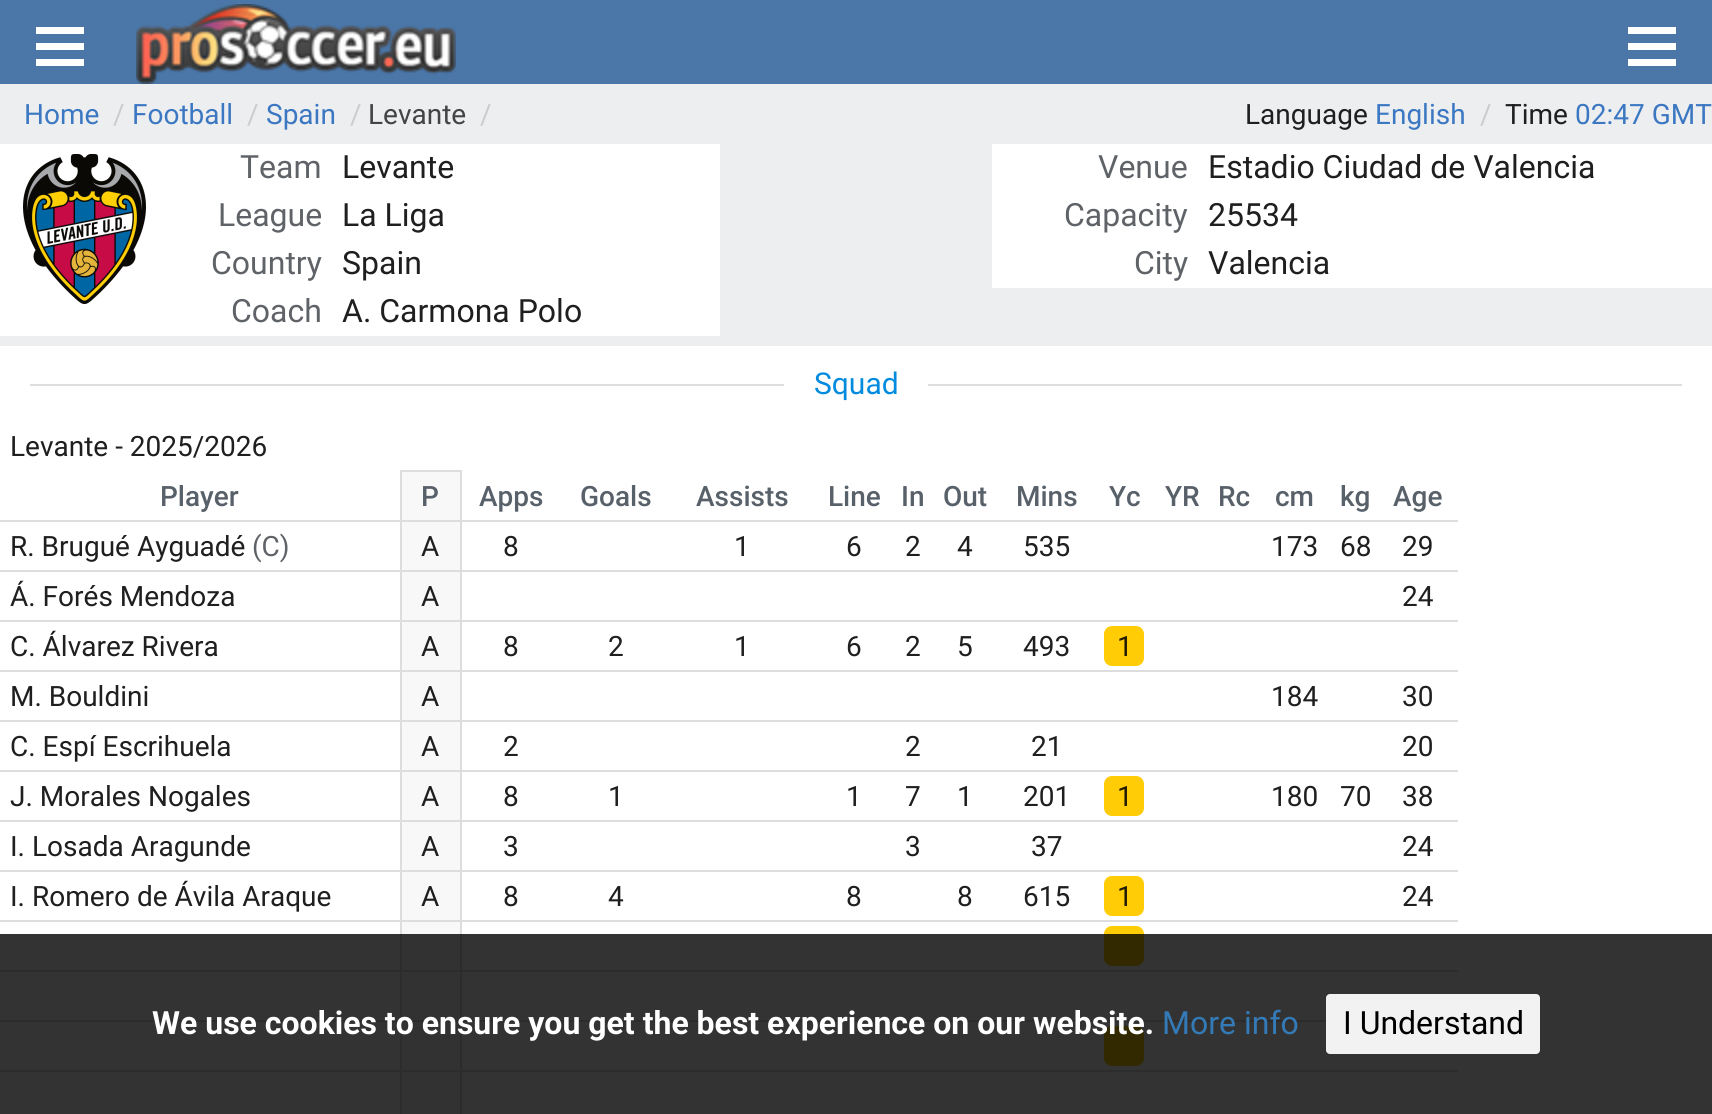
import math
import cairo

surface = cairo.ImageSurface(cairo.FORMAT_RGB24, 1712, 1114)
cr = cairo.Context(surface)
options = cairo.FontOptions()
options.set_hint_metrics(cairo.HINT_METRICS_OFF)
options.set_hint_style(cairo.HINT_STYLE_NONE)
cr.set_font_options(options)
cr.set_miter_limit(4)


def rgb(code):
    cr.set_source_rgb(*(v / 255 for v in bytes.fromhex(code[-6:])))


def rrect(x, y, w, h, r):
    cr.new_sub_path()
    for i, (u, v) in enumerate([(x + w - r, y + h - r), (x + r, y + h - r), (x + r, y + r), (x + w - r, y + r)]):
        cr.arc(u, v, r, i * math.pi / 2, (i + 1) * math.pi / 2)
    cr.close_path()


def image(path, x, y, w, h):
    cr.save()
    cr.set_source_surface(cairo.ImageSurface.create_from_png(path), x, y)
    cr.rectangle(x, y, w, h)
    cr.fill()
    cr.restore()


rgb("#edeef0")
cr.paint()
for x, y, w, h, color in [
    (0, 0, 1712, 84, "#4a76a8"),
    (36, 27, 48, 7, "#ffffff"),
    (36, 43, 48, 7, "#ffffff"),
    (36, 59, 48, 7, "#ffffff"),
]:
    rgb(color)
    cr.rectangle(x, y, w, h)
    cr.fill()
image("img/1.png", 136, 4, 320, 80)
for x, y, w, h, color in [
    (1628, 27, 48, 7, "#ffffff"),
    (1628, 43, 48, 7, "#ffffff"),
    (1628, 59, 48, 7, "#ffffff"),
    (0, 144, 720, 192, "#ffffff"),
]:
    rgb(color)
    cr.rectangle(x, y, w, h)
    cr.fill()
image("img/2.png", 23, 154, 123, 150)
for x, y, w, h, color in [
    (992, 144, 720, 144, "#ffffff"),
    (0, 346, 1712, 768, "#ffffff"),
    (30, 384, 754, 2, "#dddddd"),
    (928, 384, 754, 2, "#dddddd"),
    (0, 520, 1458, 2, "#dddddd"),
    (402, 472, 58, 48, "#f8f8f8"),
    (400, 470, 62, 2, "#dddddd"),
    (0, 570, 1458, 2, "#dddddd"),
    (0, 620, 1458, 2, "#dddddd"),
    (0, 670, 1458, 2, "#dddddd"),
    (0, 720, 1458, 2, "#dddddd"),
    (0, 770, 1458, 2, "#dddddd"),
    (0, 820, 1458, 2, "#dddddd"),
    (0, 870, 1458, 2, "#dddddd"),
    (0, 920, 1458, 2, "#dddddd"),
    (0, 970, 1458, 2, "#dddddd"),
    (0, 1020, 1326, 2, "#dddddd"),
    (0, 1070, 1458, 2, "#dddddd"),
    (460, 520, 2, 594, "#dddddd"),
    (460, 470, 2, 52, "#dddddd"),
    (400, 520, 2, 594, "#dddddd"),
    (400, 470, 2, 52, "#dddddd"),
    (402, 1072, 58, 42, "#f8f8f8"),
    (402, 522, 58, 48, "#f8f8f8"),
    (402, 572, 58, 48, "#f8f8f8"),
    (402, 622, 58, 48, "#f8f8f8"),
]:
    rgb(color)
    cr.rectangle(x, y, w, h)
    cr.fill()
rgb("#ffcc05")
rrect(1104, 626, 40, 40, 8)
cr.fill()
for x, y, w, h, color in [
    (402, 672, 58, 48, "#f8f8f8"),
    (402, 722, 58, 48, "#f8f8f8"),
    (402, 772, 58, 48, "#f8f8f8"),
]:
    rgb(color)
    cr.rectangle(x, y, w, h)
    cr.fill()
rgb("#ffcc05")
rrect(1104, 776, 40, 40, 8)
cr.fill()
rgb("#f8f8f8")
cr.rectangle(402, 822, 58, 48)
cr.fill()
cr.rectangle(402, 872, 58, 48)
cr.fill()
rgb("#ffcc05")
rrect(1104, 876, 40, 40, 8)
cr.fill()
rgb("#f8f8f8")
cr.rectangle(402, 922, 58, 48)
cr.fill()
rgb("#ffcc05")
rrect(1104, 926, 40, 40, 8)
cr.fill()
rgb("#f8f8f8")
cr.rectangle(402, 972, 58, 48)
cr.fill()
cr.rectangle(402, 1022, 58, 48)
cr.fill()
rgb("#ffcc05")
rrect(1104, 1026, 40, 40, 8)
cr.fill()
cr.set_source_rgba(0, 0, 0, 0.8)
cr.rectangle(0, 934, 1712, 180)
cr.fill()
rgb("#f2f2f2")
rrect(1326, 994, 214, 60, 4)
cr.fill()
cr.select_font_face("Roboto")
cr.set_font_size(28)
rgb("#3c78c2")
cr.move_to(24, 124)
cr.show_text("Home")
rgb("#cccccc")
cr.move_to(113, 124)
cr.show_text("/")
rgb("#3c78c2")
cr.move_to(132, 124)
cr.show_text("Football")
rgb("#cccccc")
cr.move_to(247, 124)
cr.show_text("/")
rgb("#3c78c2")
cr.move_to(266, 124)
cr.show_text("Spain")
rgb("#cccccc")
cr.move_to(350, 124)
cr.show_text("/")
rgb("#444444")
cr.move_to(368, 124)
cr.show_text("Levante")
rgb("#cccccc")
cr.move_to(480, 124)
cr.show_text("/")
rgb("#1f1f1f")
cr.move_to(1245, 124)
cr.show_text("Language")
rgb("#3c78c2")
cr.move_to(1375, 124)
cr.show_text("English")
rgb("#cccccc")
cr.move_to(1480, 124)
cr.show_text("/")
rgb("#1f1f1f")
cr.move_to(1505, 124)
cr.show_text("Time")
rgb("#3c78c2")
cr.move_to(1575, 124)
cr.show_text("02:47 GMT")
cr.set_font_size(32)
rgb("#5f6368")
cr.move_to(240, 178)
cr.show_text("Team")
rgb("#1f1f1f")
cr.move_to(342, 178)
cr.show_text("Levante")
rgb("#5f6368")
cr.move_to(218, 226)
cr.show_text("League")
rgb("#1f1f1f")
cr.move_to(342, 226)
cr.show_text("La Liga")
rgb("#5f6368")
cr.move_to(211, 274)
cr.show_text("Country")
rgb("#1f1f1f")
cr.move_to(342, 274)
cr.show_text("Spain")
rgb("#5f6368")
cr.move_to(231, 322)
cr.show_text("Coach")
rgb("#1f1f1f")
cr.move_to(342, 322)
cr.show_text("A. Carmona Polo")
rgb("#5f6368")
cr.move_to(1098, 178)
cr.show_text("Venue")
rgb("#1f1f1f")
cr.move_to(1208, 178)
cr.show_text("Estadio Ciudad de Valencia")
rgb("#5f6368")
cr.move_to(1064, 226)
cr.show_text("Capacity")
rgb("#1f1f1f")
cr.move_to(1208, 226)
cr.show_text("25534")
rgb("#5f6368")
cr.move_to(1134, 274)
cr.show_text("City")
rgb("#1f1f1f")
cr.move_to(1208, 274)
cr.show_text("Valencia")
cr.set_font_size(30)
rgb("#008bdf")
cr.move_to(814, 394)
cr.show_text("Squad")
cr.set_font_size(28)
rgb("#1f1f1f")
cr.move_to(10, 456)
cr.show_text("Levante - 2025/2026")
cr.select_font_face("Roboto Medium")
rgb("#586069")
for x, y, s in [
    (160, 506, "Player"),
    (421, 506, "P"),
    (479, 506, "Apps"),
    (580, 506, "Goals"),
    (696, 506, "Assists"),
    (828, 506, "Line"),
    (901, 506, "In"),
    (943, 506, "Out"),
    (1016, 506, "Mins"),
    (1109, 506, "Yc"),
    (1165, 506, "YR"),
    (1218, 506, "Rc"),
    (1275, 506, "cm"),
    (1340, 506, "kg"),
    (1393, 506, "Age"),
]:
    cr.move_to(x, y)
    cr.show_text(s)
cr.select_font_face("Roboto")
rgb("#1f1f1f")
cr.move_to(10, 556)
cr.show_text("R. Brugué Ayguadé")
rgb("#5f6368")
cr.move_to(252, 556)
cr.show_text("(C)")
rgb("#1f1f1f")
for x, y, s in [
    (421, 556, "A"),
    (503, 556, "8"),
    (734, 556, "1"),
    (846, 556, "6"),
    (905, 556, "2"),
    (957, 556, "4"),
    (1023, 556, "535"),
    (1271, 556, "173"),
    (1340, 556, "68"),
    (1402, 556, "29"),
    (10, 606, "Á. Forés Mendoza"),
    (421, 606, "A"),
    (1402, 606, "24"),
    (10, 656, "C. Álvarez Rivera"),
    (421, 656, "A"),
    (503, 656, "8"),
    (608, 656, "2"),
    (734, 656, "1"),
    (846, 656, "6"),
    (905, 656, "2"),
    (957, 656, "5"),
    (1023, 656, "493"),
]:
    cr.move_to(x, y)
    cr.show_text(s)
rgb("#211b01")
cr.move_to(1117, 656)
cr.show_text("1")
rgb("#1f1f1f")
for x, y, s in [
    (10, 706, "M. Bouldini"),
    (421, 706, "A"),
    (1271, 706, "184"),
    (1402, 706, "30"),
    (10, 756, "C. Espí Escrihuela"),
    (421, 756, "A"),
    (503, 756, "2"),
    (905, 756, "2"),
    (1031, 756, "21"),
    (1402, 756, "20"),
    (10, 806, "J. Morales Nogales"),
    (421, 806, "A"),
    (503, 806, "8"),
    (608, 806, "1"),
    (846, 806, "1"),
    (905, 806, "7"),
    (957, 806, "1"),
    (1023, 806, "201"),
]:
    cr.move_to(x, y)
    cr.show_text(s)
rgb("#211b01")
cr.move_to(1117, 806)
cr.show_text("1")
rgb("#1f1f1f")
for x, y, s in [
    (1271, 806, "180"),
    (1340, 806, "70"),
    (1402, 806, "38"),
    (10, 856, "I. Losada Aragunde"),
    (421, 856, "A"),
    (503, 856, "3"),
    (905, 856, "3"),
    (1031, 856, "37"),
    (1402, 856, "24"),
    (10, 906, "I. Romero de Ávila Araque"),
    (421, 906, "A"),
    (503, 906, "8"),
    (608, 906, "4"),
    (846, 906, "8"),
    (957, 906, "8"),
    (1023, 906, "615"),
]:
    cr.move_to(x, y)
    cr.show_text(s)
rgb("#211b01")
cr.move_to(1117, 906)
cr.show_text("1")
rgb("#1f1f1f")
cr.move_to(1402, 906)
cr.show_text("24")
cr.select_font_face("Roboto", cairo.FONT_SLANT_NORMAL, cairo.FONT_WEIGHT_BOLD)
cr.set_font_size(32)
rgb("#ffffff")
cr.move_to(152, 1034)
cr.show_text("We use cookies to ensure you get the best experience on our website.")
cr.select_font_face("Roboto")
rgb("#337ab7")
cr.move_to(1162, 1034)
cr.show_text("More info")
rgb("#000000")
cr.move_to(1343, 1034)
cr.show_text("I Understand")
surface.write_to_png("page.png")
